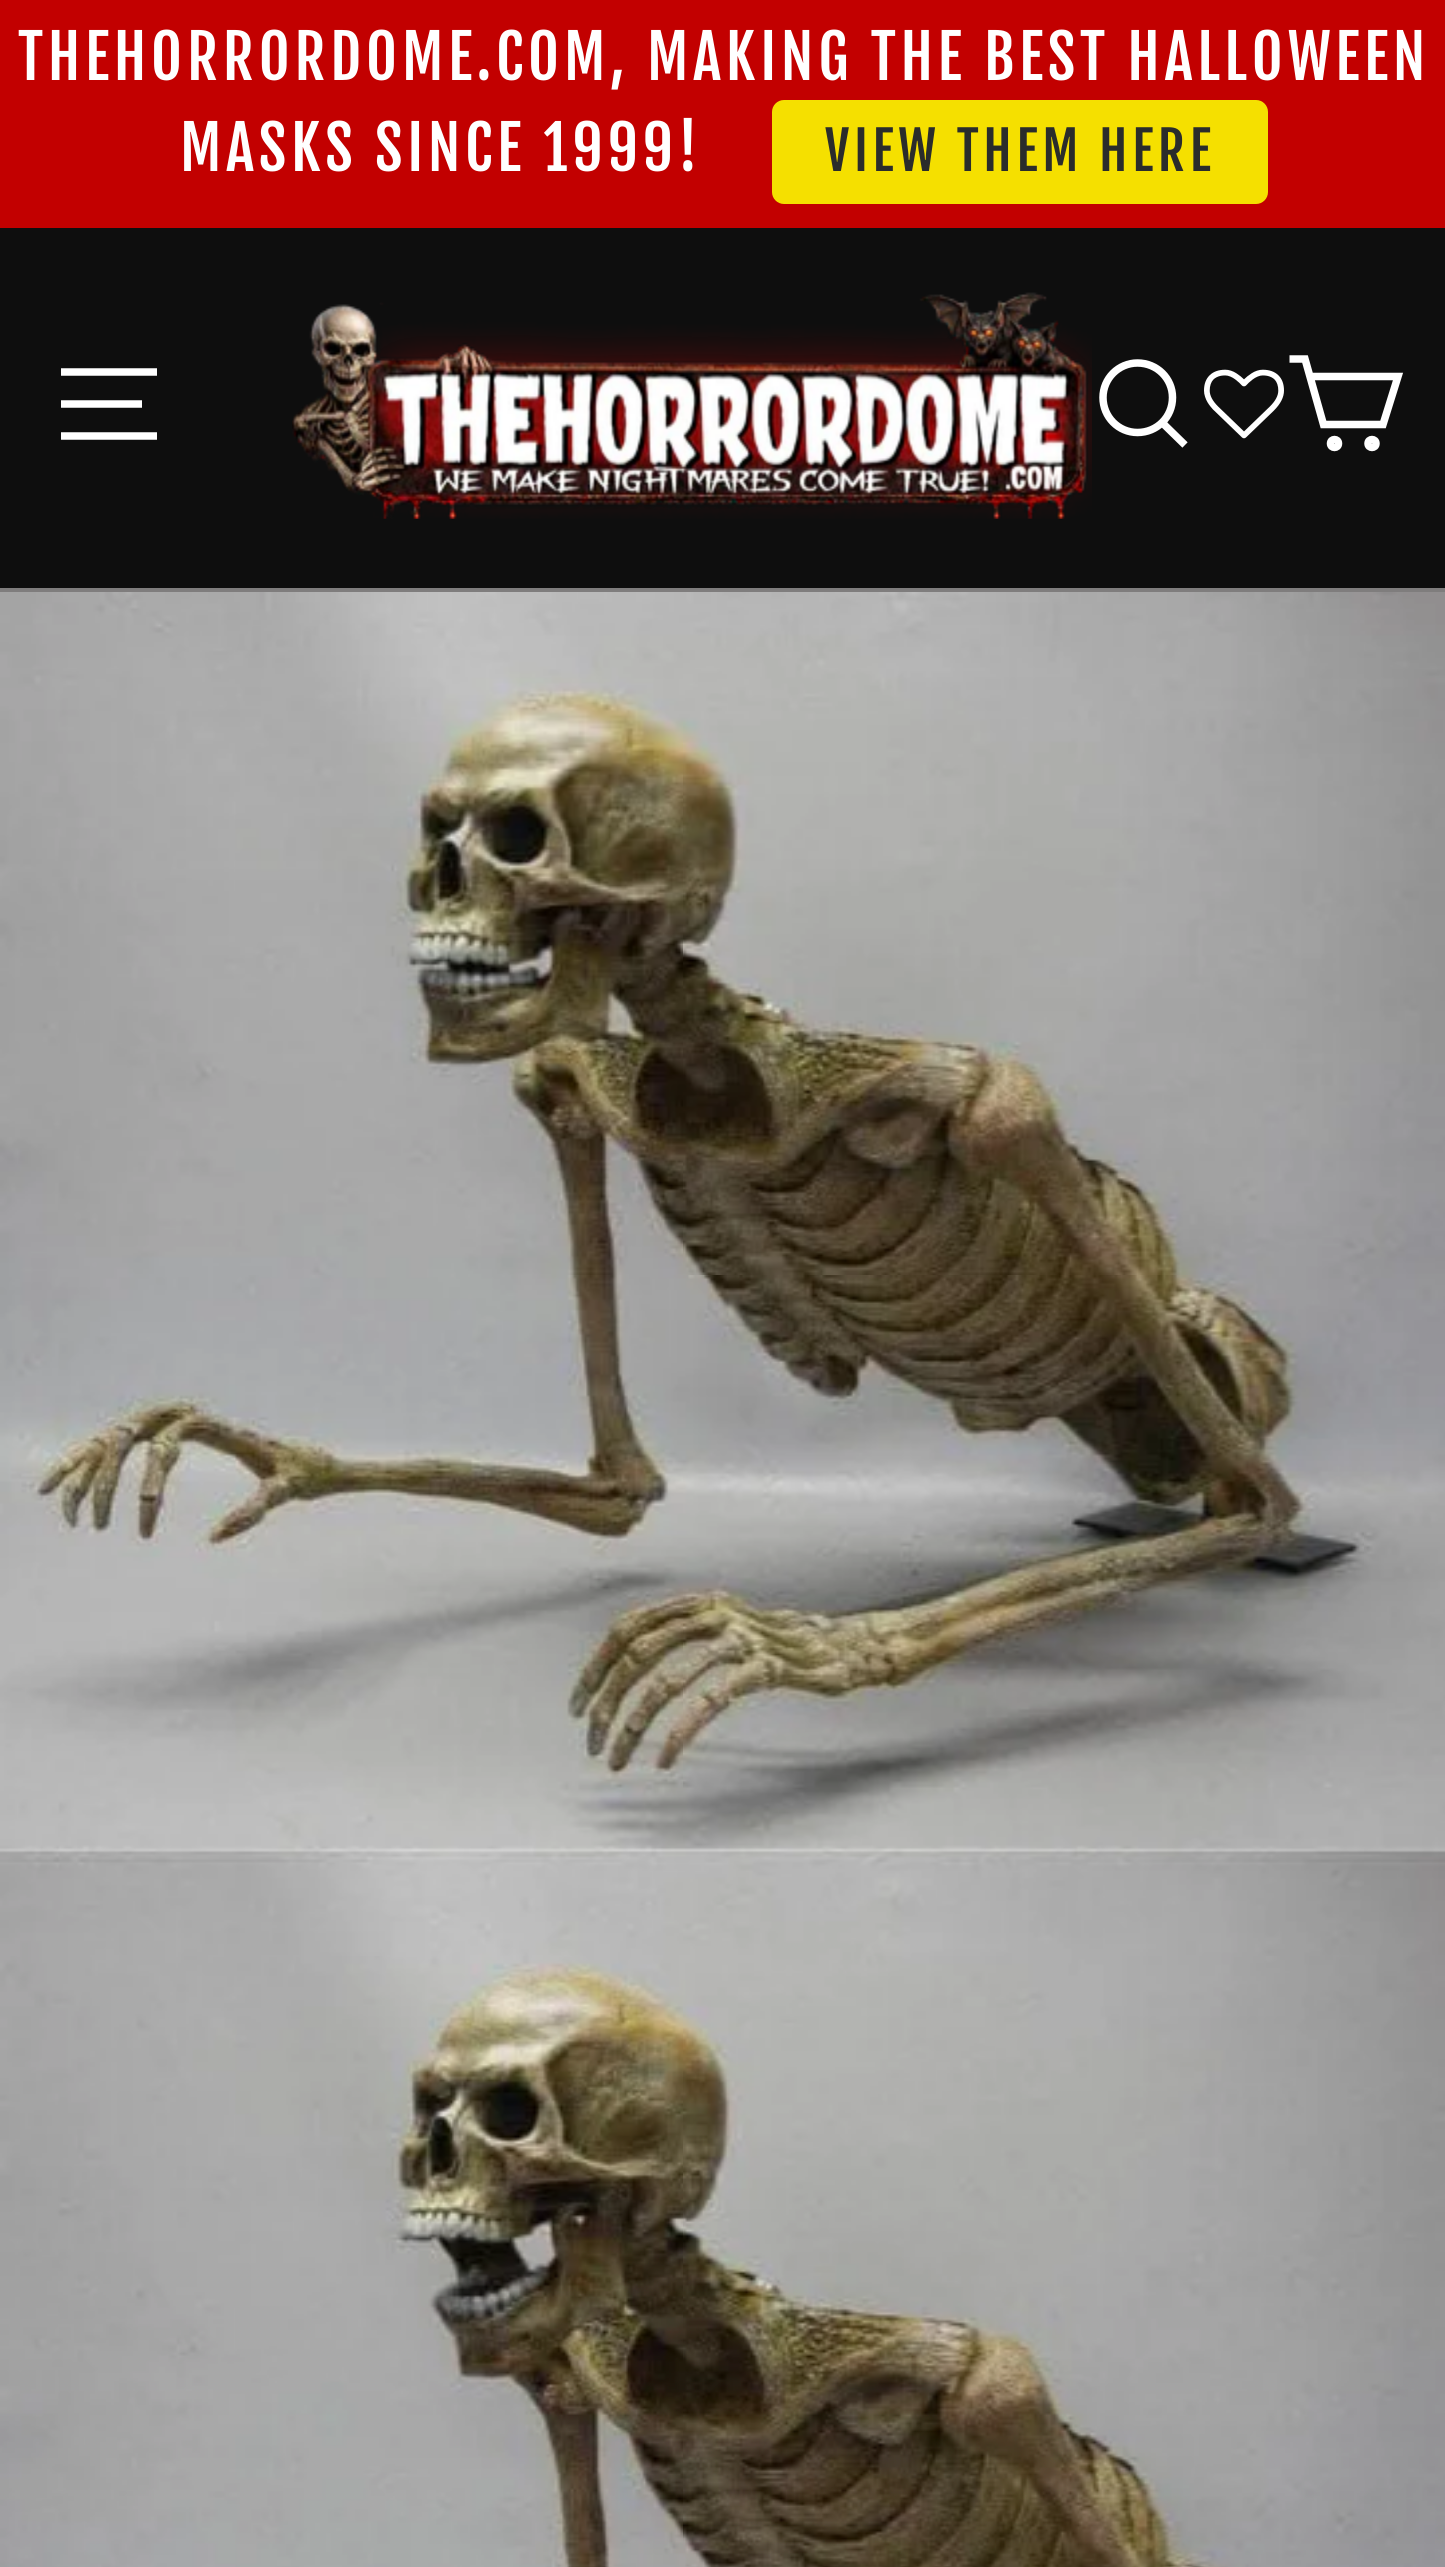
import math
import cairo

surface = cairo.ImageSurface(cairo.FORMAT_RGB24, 1445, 2567)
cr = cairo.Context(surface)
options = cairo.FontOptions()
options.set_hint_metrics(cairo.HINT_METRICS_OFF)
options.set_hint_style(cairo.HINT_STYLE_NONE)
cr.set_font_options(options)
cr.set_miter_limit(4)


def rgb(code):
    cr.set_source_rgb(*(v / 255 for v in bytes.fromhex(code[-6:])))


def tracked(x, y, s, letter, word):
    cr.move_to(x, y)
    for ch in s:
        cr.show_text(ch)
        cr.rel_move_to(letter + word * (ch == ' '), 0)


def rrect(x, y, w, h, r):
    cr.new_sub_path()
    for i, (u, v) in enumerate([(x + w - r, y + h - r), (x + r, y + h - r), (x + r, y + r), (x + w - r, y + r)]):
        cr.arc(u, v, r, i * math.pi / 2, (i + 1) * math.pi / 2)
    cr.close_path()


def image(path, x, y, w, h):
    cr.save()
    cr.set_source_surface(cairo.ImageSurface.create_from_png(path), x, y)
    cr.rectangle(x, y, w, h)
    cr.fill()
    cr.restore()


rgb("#7f7d7d")
cr.paint()
rgb("#c20000")
cr.rectangle(0, 0, 1445, 228)
cr.fill()
rgb("#f5e000")
rrect(772, 100, 496, 104, 12)
cr.fill()
rgb("#0e0e0e")
cr.rectangle(0, 228, 1445, 360)
cr.fill()
cr.new_path()
cr.move_to(61, 372)
cr.line_to(157, 372)
cr.move_to(61, 404)
cr.line_to(142, 404)
cr.move_to(61, 436)
cr.line_to(157, 436)
rgb("#ffffff")
cr.set_line_width(7.5)
cr.stroke()
image("img/1.png", 292, 292, 800, 227)
cr.new_path()
cr.move_to(1172.5, 397.5)
cr.curve_to(1172.5, 417, 1157, 432.5, 1137.5, 432.5)
cr.curve_to(1118.5, 432.5, 1103, 417, 1103, 397.5)
cr.curve_to(1103, 378.5, 1118.5, 363, 1137.5, 363)
cr.curve_to(1157, 363, 1172.5, 378.5, 1172.5, 397.5)
cr.close_path()
cr.move_to(1185, 445)
cr.line_to(1162.5, 423)
cr.stroke()
image("img/2.png", 1204, 369, 80, 70)
cr.new_path()
cr.move_to(1310, 376.5)
cr.line_to(1398, 376.5)
cr.line_to(1383, 424.5)
cr.line_to(1323.5, 424.5)
cr.line_to(1305, 359)
cr.line_to(1289.5, 359)
cr.stroke()
cr.arc(1334.5, 443.5, 4, 0, 2 * math.pi)
cr.stroke()
cr.arc(1372, 443.5, 4, 0, 2 * math.pi)
cr.stroke()
image("img/3.png", 0, 592, 1445, 1975)
cr.select_font_face("Fjalla One")
cr.set_font_size(60)
tracked(18, 80, "THEHORRORDOME.COM, MAKING THE BEST HALLOWEEN", 4.7, 0)
tracked(180, 171, "MASKS SINCE 1999!", 4.7, 0)
cr.set_font_size(52.5)
rgb("#2a2c2b")
tracked(825, 171, "VIEW THEM HERE", 4.7, 0)
surface.write_to_png("page.png")
